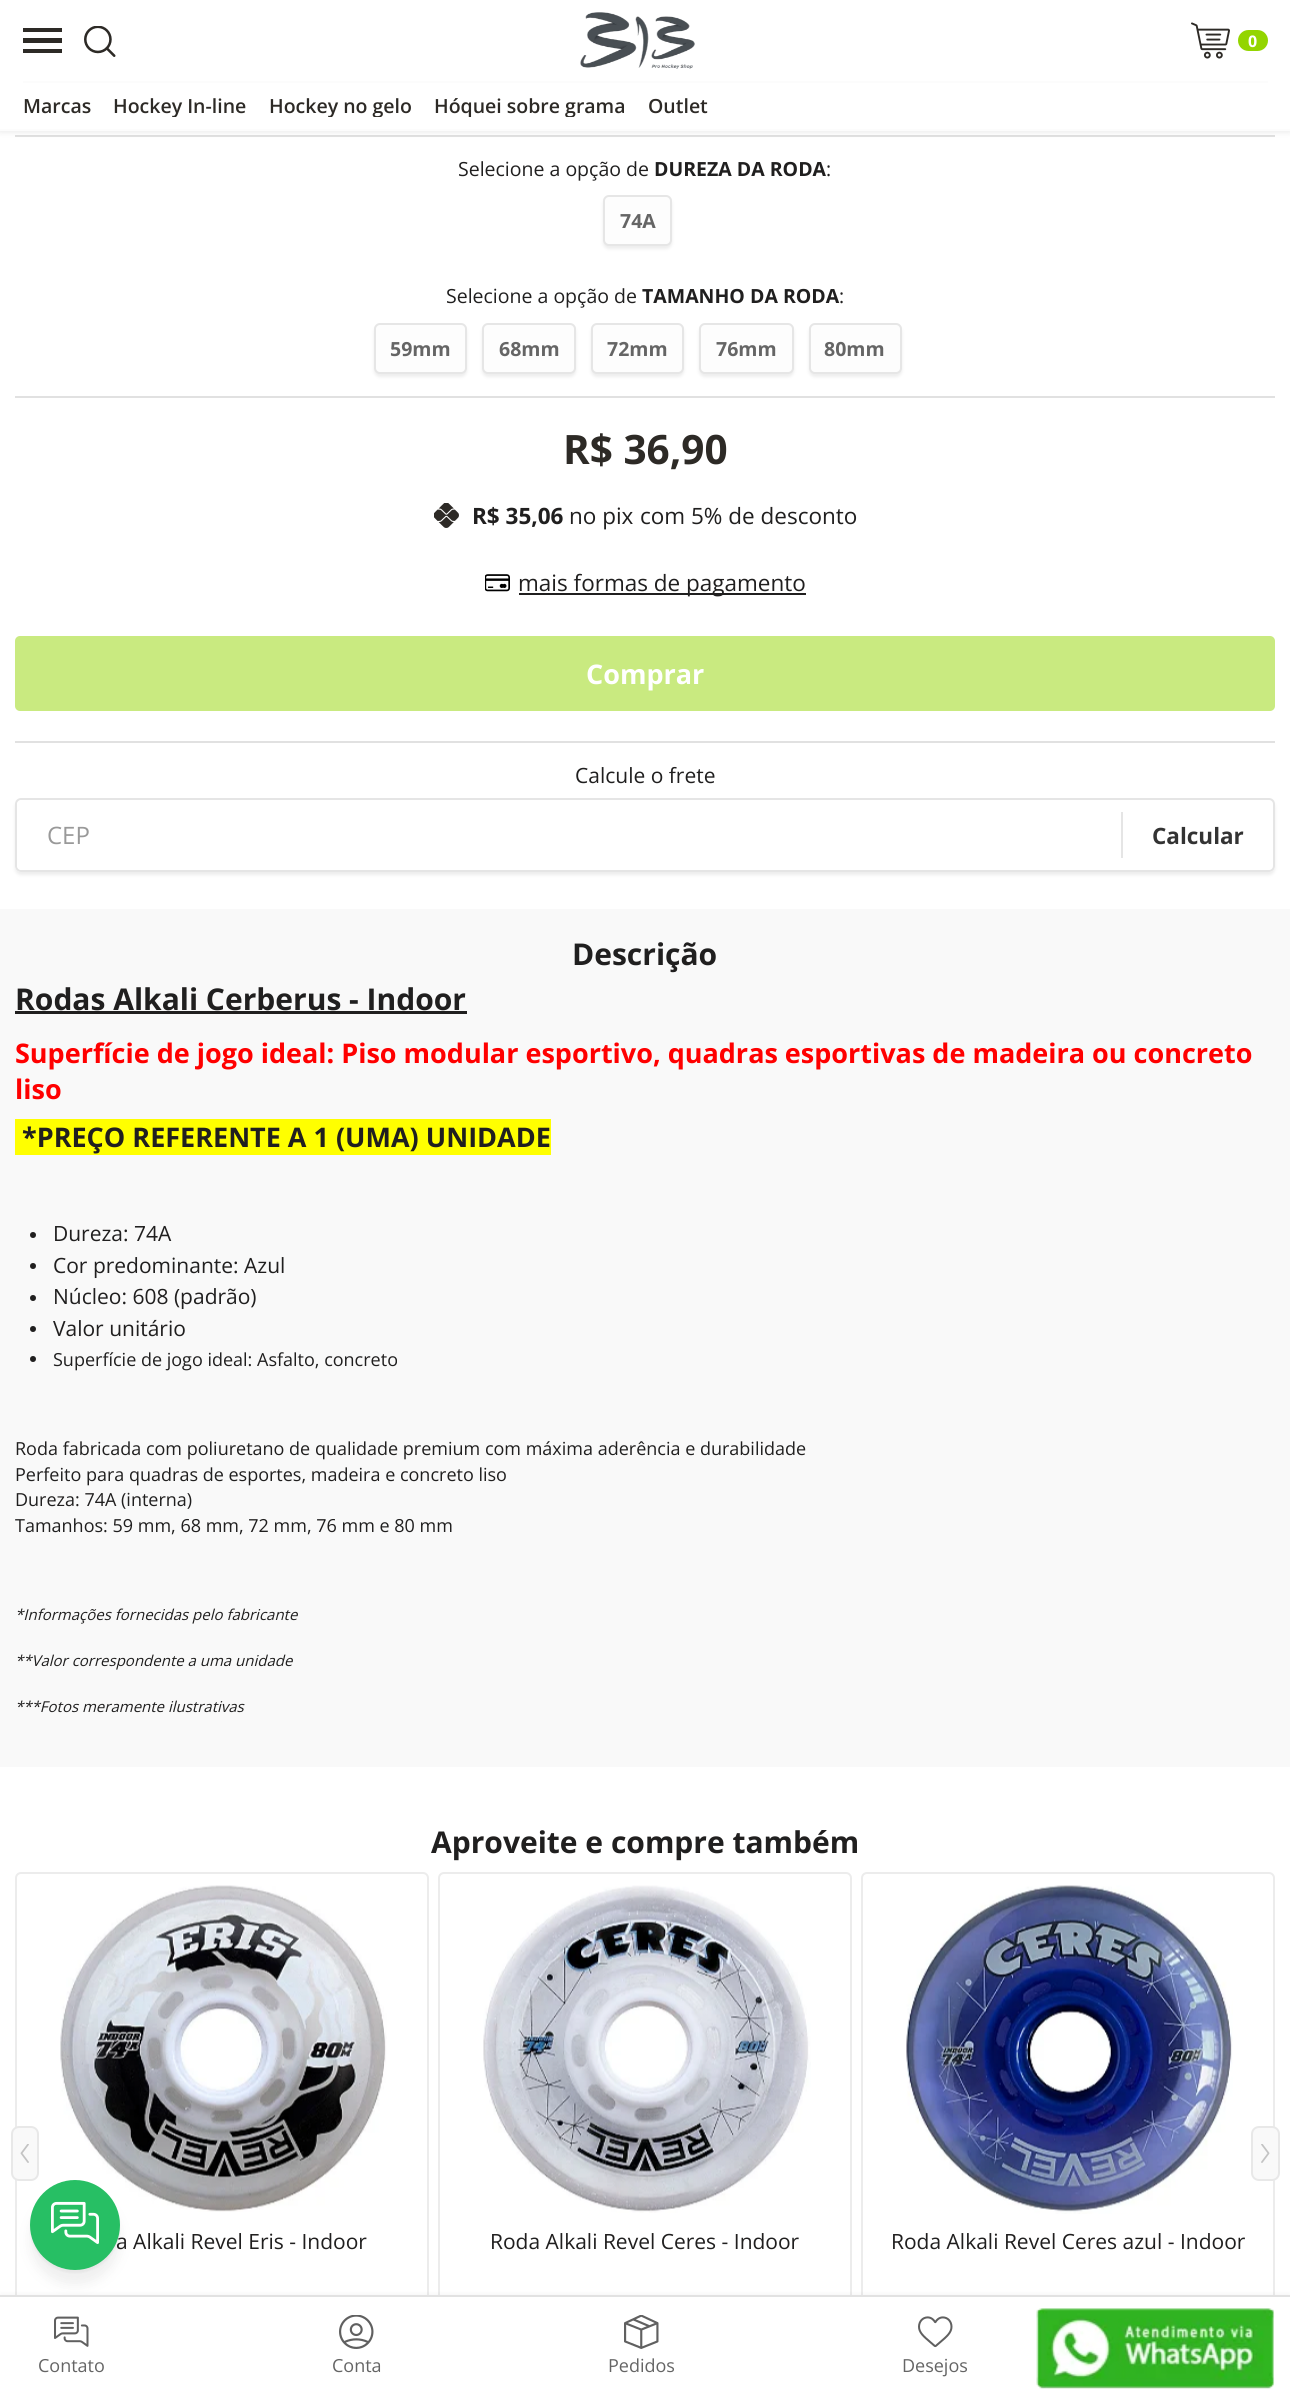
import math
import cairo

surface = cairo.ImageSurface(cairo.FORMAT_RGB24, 1290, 2404)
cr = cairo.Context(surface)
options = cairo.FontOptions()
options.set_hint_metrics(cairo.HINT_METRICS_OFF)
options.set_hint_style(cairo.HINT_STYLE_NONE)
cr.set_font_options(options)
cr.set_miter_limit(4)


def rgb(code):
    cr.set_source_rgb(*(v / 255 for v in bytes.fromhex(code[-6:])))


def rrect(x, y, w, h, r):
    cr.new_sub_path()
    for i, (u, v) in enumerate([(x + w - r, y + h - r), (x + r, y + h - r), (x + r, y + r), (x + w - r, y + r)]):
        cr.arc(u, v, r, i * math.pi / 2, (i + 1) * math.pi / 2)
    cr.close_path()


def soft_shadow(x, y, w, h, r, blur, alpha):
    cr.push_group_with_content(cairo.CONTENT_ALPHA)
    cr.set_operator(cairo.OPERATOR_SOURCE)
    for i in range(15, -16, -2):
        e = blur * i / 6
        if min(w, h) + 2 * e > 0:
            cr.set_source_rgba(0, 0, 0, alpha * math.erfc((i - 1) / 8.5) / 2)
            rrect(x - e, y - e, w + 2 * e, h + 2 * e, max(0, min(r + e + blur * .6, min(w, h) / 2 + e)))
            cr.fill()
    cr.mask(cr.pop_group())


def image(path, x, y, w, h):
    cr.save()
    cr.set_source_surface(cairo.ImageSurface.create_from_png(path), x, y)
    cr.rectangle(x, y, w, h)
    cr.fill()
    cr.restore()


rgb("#ffffff")
cr.paint()
rgb("#e1e1e1")
cr.rectangle(15, 135, 1260, 2)
cr.fill()
rgb("#525252")
soft_shadow(0, 2, 1290, 130, 0, 3, 0.13)
for x, y, w, h, color in [
    (0, 0, 1290, 129, "#ffffff"),
    (0, 129, 1290, 2, "#fcfcfc"),
    (23, 49, 39, 4, "#2d2a26"),
    (23, 38, 39, 5, "#2d2a26"),
    (23, 28, 39, 4, "#2d2a26"),
]:
    rgb(color)
    cr.rectangle(x, y, w, h)
    cr.fill()
image("img/1.png", 84, 26, 32, 31)
image("img/2.png", 580, 12, 115, 57)
image("img/3.png", 1191, 22, 39, 37)
rgb("#93d500")
rrect(1238, 30, 30, 21, 10.5)
cr.fill()
rgb("#fcfcfc")
cr.rectangle(23, 81, 1245, 2)
cr.fill()
rgb("#e1e1e1")
cr.rectangle(15, 396, 1260, 2)
cr.fill()
rgb("#cdcdcd")
soft_shadow(603, 198, 69, 51, 6, 1.5, 0.35)
rgb("#fdfdfd")
rrect(604, 196, 67, 49, 5)
cr.fill_preserve()
rgb("#e6e6e6")
cr.stroke()
rgb("#cdcdcd")
soft_shadow(374, 326, 93, 51, 6, 1.5, 0.35)
rgb("#fdfdfd")
rrect(375, 324, 91, 49, 5)
cr.fill_preserve()
rgb("#e6e6e6")
cr.stroke()
rgb("#cdcdcd")
soft_shadow(482, 326, 94, 51, 6, 1.5, 0.35)
rgb("#fdfdfd")
rrect(483, 324, 92, 49, 5)
cr.fill_preserve()
rgb("#e6e6e6")
cr.stroke()
rgb("#cdcdcd")
soft_shadow(591, 326, 93, 51, 6, 1.5, 0.35)
rgb("#fdfdfd")
rrect(592, 324, 91, 49, 5)
cr.fill_preserve()
rgb("#e6e6e6")
cr.stroke()
rgb("#cdcdcd")
soft_shadow(699, 326, 95, 51, 6, 1.5, 0.35)
rgb("#fdfdfd")
rrect(700, 324, 93, 49, 5)
cr.fill_preserve()
rgb("#e6e6e6")
cr.stroke()
rgb("#cdcdcd")
soft_shadow(809, 326, 93, 51, 6, 1.5, 0.35)
rgb("#fdfdfd")
rrect(810, 324, 91, 49, 5)
cr.fill_preserve()
rgb("#e6e6e6")
cr.stroke()
image("img/4.png", 434, 503, 25, 25)
image("img/5.png", 485, 574, 25, 18)
rgb("#201f1f")
cr.rectangle(519, 593, 287, 2)
cr.fill()
rgb("#c9ea80")
rrect(15, 636, 1260, 75, 5)
cr.fill()
rgb("#e1e1e1")
cr.rectangle(15, 741, 1260, 2)
cr.fill()
cr.save()
cr.set_fill_rule(cairo.FILL_RULE_EVEN_ODD)
cr.new_path()
cr.move_to(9, 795)
cr.line_to(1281, 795)
cr.line_to(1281, 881)
cr.line_to(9, 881)
cr.close_path()
cr.move_to(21, 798)
cr.line_to(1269, 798)
cr.curve_to(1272.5, 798, 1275, 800.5, 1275, 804)
cr.line_to(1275, 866)
cr.curve_to(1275, 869.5, 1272.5, 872, 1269, 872)
cr.line_to(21, 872)
cr.curve_to(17.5, 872, 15, 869.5, 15, 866)
cr.line_to(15, 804)
cr.curve_to(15, 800.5, 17.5, 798, 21, 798)
cr.close_path()
cr.clip()
rgb("#cdcdcd")
soft_shadow(15, 801, 1260, 74, 6, 1.5, 0.35)
cr.restore()
rrect(16, 799, 1258, 72, 5)
rgb("#e5e5e5")
cr.stroke()
rgb("#ffffff")
rrect(17, 800, 1104, 70, 5)
cr.fill()
for x, y, w, h, color in [
    (1121, 812, 2, 46, "#e5e5e5"),
    (0, 909, 1290, 858, "#f9f9f9"),
    (15, 1011, 452, 3, "#201f1f"),
    (15, 1119, 536, 36, "#ffff00"),
]:
    rgb(color)
    cr.rectangle(x, y, w, h)
    cr.fill()
rgb("#201f1f")
cr.arc(33, 1235, 3, 0, 2 * math.pi)
cr.fill()
cr.arc(33, 1266, 3, 0, 2 * math.pi)
cr.fill()
cr.arc(33, 1298, 3, 0, 2 * math.pi)
cr.fill()
cr.arc(33, 1329, 3, 0, 2 * math.pi)
cr.fill()
cr.arc(33, 1359, 3, 0, 2 * math.pi)
cr.fill()
rrect(16, 1873, 412, 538, 5)
rgb("#ececec")
cr.stroke()
rgb("#f9f9f9")
rrect(12, 2127, 26, 53, 7)
cr.fill_preserve()
rgb("#e8e8e8")
cr.stroke()
image("img/6.png", 20, 2144, 9, 19)
rrect(862, 1873, 412, 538, 5)
rgb("#ececec")
cr.stroke()
rgb("#f9f9f9")
rrect(1252, 2127, 27, 53, 7)
cr.fill_preserve()
rgb("#e8e8e8")
cr.stroke()
image("img/7.png", 1261, 2144, 9, 19)
image("img/8.png", 60, 1885, 327, 327)
rrect(439, 1873, 412, 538, 5)
rgb("#ececec")
cr.stroke()
image("img/9.png", 483, 1885, 328, 328)
image("img/10.png", 906, 1885, 327, 329)
rgb("#676767")
soft_shadow(30, 2195, 90, 90, 45, 6, 0.1)
rgb("#000000")
soft_shadow(30, 2183, 90, 90, 45, 1, 0.04)
rgb("#525252")
soft_shadow(0, 2295, 1290, 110, 0, 3, 0.08)
rgb("#ffffff")
cr.rectangle(0, 2297, 1290, 107)
cr.fill()
rgb("#e2e2e2")
cr.rectangle(0, 2295, 1290, 2)
cr.fill()
image("img/12.png", 54, 2316, 35, 31)
image("img/13.png", 339, 2315, 35, 34)
image("img/14.png", 624, 2315, 35, 34)
image("img/15.png", 918, 2316, 35, 32)
image("img/16.png", 1036, 2308, 239, 81)
cr.select_font_face("Open Sans", cairo.FONT_SLANT_NORMAL, cairo.FONT_WEIGHT_BOLD)
cr.set_font_size(16)
rgb("#ffffff")
cr.move_to(1248, 47)
cr.show_text("0")
cr.select_font_face("Open Sans SemiBold")
cr.set_font_size(19.5)
rgb("#2d2a26")
cr.move_to(23, 113)
cr.show_text("Marcas")
cr.save()
cr.rectangle(23, 83, 1245, 34)
cr.clip()
for x, y, s in [
    (113, 113, "Hockey In-line"),
    (269, 113, "Hockey no gelo"),
    (434, 113, "Hóquei sobre grama"),
]:
    cr.move_to(x, y)
    cr.show_text(s)
cr.restore()
cr.move_to(648, 113)
cr.show_text("Outlet")
cr.select_font_face("Open Sans")
rgb("#201f1f")
cr.move_to(458, 176)
cr.show_text("Selecione a opção de")
cr.select_font_face("Open Sans", cairo.FONT_SLANT_NORMAL, cairo.FONT_WEIGHT_BOLD)
cr.move_to(654, 176)
cr.show_text("DUREZA DA RODA")
cr.select_font_face("Open Sans")
cr.move_to(826, 176)
cr.show_text(":")
cr.select_font_face("Open Sans", cairo.FONT_SLANT_NORMAL, cairo.FONT_WEIGHT_BOLD)
rgb("#656565")
cr.move_to(620, 228)
cr.show_text("74A")
cr.select_font_face("Open Sans")
rgb("#201f1f")
cr.move_to(446, 303)
cr.show_text("Selecione a opção de")
cr.select_font_face("Open Sans", cairo.FONT_SLANT_NORMAL, cairo.FONT_WEIGHT_BOLD)
cr.move_to(642, 303)
cr.show_text("TAMANHO DA RODA")
cr.select_font_face("Open Sans")
cr.move_to(839, 303)
cr.show_text(":")
cr.select_font_face("Open Sans", cairo.FONT_SLANT_NORMAL, cairo.FONT_WEIGHT_BOLD)
rgb("#656565")
for x, y, s in [
    (390, 356, "59mm"),
    (499, 356, "68mm"),
    (607, 356, "72mm"),
    (716, 356, "76mm"),
    (824, 356, "80mm"),
]:
    cr.move_to(x, y)
    cr.show_text(s)
cr.set_font_size(40.5)
rgb("#2d2a26")
cr.move_to(563, 464)
cr.show_text("R$ 36,90")
cr.set_font_size(22.5)
rgb("#201f1f")
cr.move_to(472, 524)
cr.show_text("R$ 35,06")
cr.select_font_face("Open Sans")
for x, y, s in [
    (569, 524, "no pix"),
    (640, 524, "com 5% de desconto"),
    (518, 591, "mais formas de pagamento"),
]:
    cr.move_to(x, y)
    cr.show_text(s)
cr.select_font_face("Open Sans", cairo.FONT_SLANT_NORMAL, cairo.FONT_WEIGHT_BOLD)
cr.set_font_size(27)
rgb("#ffffff")
cr.move_to(586, 684)
cr.show_text("Comprar")
cr.select_font_face("Open Sans")
cr.set_font_size(21)
rgb("#201f1f")
cr.move_to(575, 783)
cr.show_text("Calcule o frete")
cr.set_font_size(24)
rgb("#999999")
cr.move_to(47, 844)
cr.show_text("CEP")
cr.select_font_face("Open Sans", cairo.FONT_SLANT_NORMAL, cairo.FONT_WEIGHT_BOLD)
cr.set_font_size(22.5)
rgb("#333333")
cr.move_to(1152, 844)
cr.show_text("Calcular")
cr.set_font_size(30)
rgb("#201f1f")
cr.move_to(572, 965)
cr.show_text("Descrição")
cr.move_to(15, 1010)
cr.show_text("Rodas Alkali Cerberus - Indoor")
cr.set_font_size(27)
rgb("#ff0000")
cr.move_to(15, 1063)
cr.show_text("Superfície de jogo ideal: Piso modular esportivo, quadras esportivas de madeira ou concreto")
cr.move_to(15, 1099)
cr.show_text("liso")
rgb("#201f1f")
cr.move_to(22, 1147)
cr.show_text("*PREÇO REFERENTE A 1 (UMA) UNIDADE")
cr.select_font_face("Open Sans")
cr.set_font_size(21)
for x, y, s in [
    (53, 1241, "Dureza: 74A"),
    (53, 1273, "Cor predominante: Azul"),
    (53, 1304, "Núcleo: 608 (padrão)"),
    (53, 1336, "Valor unitário"),
]:
    cr.move_to(x, y)
    cr.show_text(s)
cr.set_font_size(18)
for x, y, s in [
    (53, 1366, "Superfície de jogo ideal: Asfalto, concreto"),
    (15, 1455, "Roda fabricada com poliuretano de qualidade premium com máxima aderência e durabilidade"),
    (15, 1481, "Perfeito para quadras de esportes, madeira e concreto liso"),
    (15, 1506, "Dureza: 74A (interna)"),
    (15, 1532, "Tamanhos: 59 mm, 68 mm, 72 mm, 76 mm e 80 mm"),
]:
    cr.move_to(x, y)
    cr.show_text(s)
cr.select_font_face("Open Sans", cairo.FONT_SLANT_ITALIC)
cr.set_font_size(15)
for x, y, s in [
    (15, 1620, "*Informações fornecidas pelo fabricante"),
    (15, 1666, "**Valor correspondente a uma unidade"),
    (15, 1712, "***Fotos meramente ilustrativas"),
]:
    cr.move_to(x, y)
    cr.show_text(s)
cr.select_font_face("Open Sans", cairo.FONT_SLANT_NORMAL, cairo.FONT_WEIGHT_BOLD)
cr.set_font_size(30)
cr.move_to(431, 1853)
cr.show_text("Aproveite e compre também")
cr.select_font_face("Open Sans")
cr.set_font_size(21)
for x, y, s in [
    (116, 2249, "a Alkali Revel Eris - Indoor"),
    (490, 2249, "Roda Alkali Revel Ceres - Indoor"),
    (891, 2249, "Roda Alkali Revel Ceres azul - Indoor"),
]:
    cr.move_to(x, y)
    cr.show_text(s)
rgb("#27bf64")
cr.new_path()
cr.arc(75, 2225, 45, 0, 2 * math.pi)
cr.fill()
image("img/11.png", 51, 2201, 48, 43)
cr.set_font_size(18)
rgb("#656565")
for x, y, s in [
    (38, 2372, "Contato"),
    (332, 2372, "Conta"),
    (608, 2372, "Pedidos"),
    (902, 2372, "Desejos"),
]:
    cr.move_to(x, y)
    cr.show_text(s)
surface.write_to_png("page.png")
